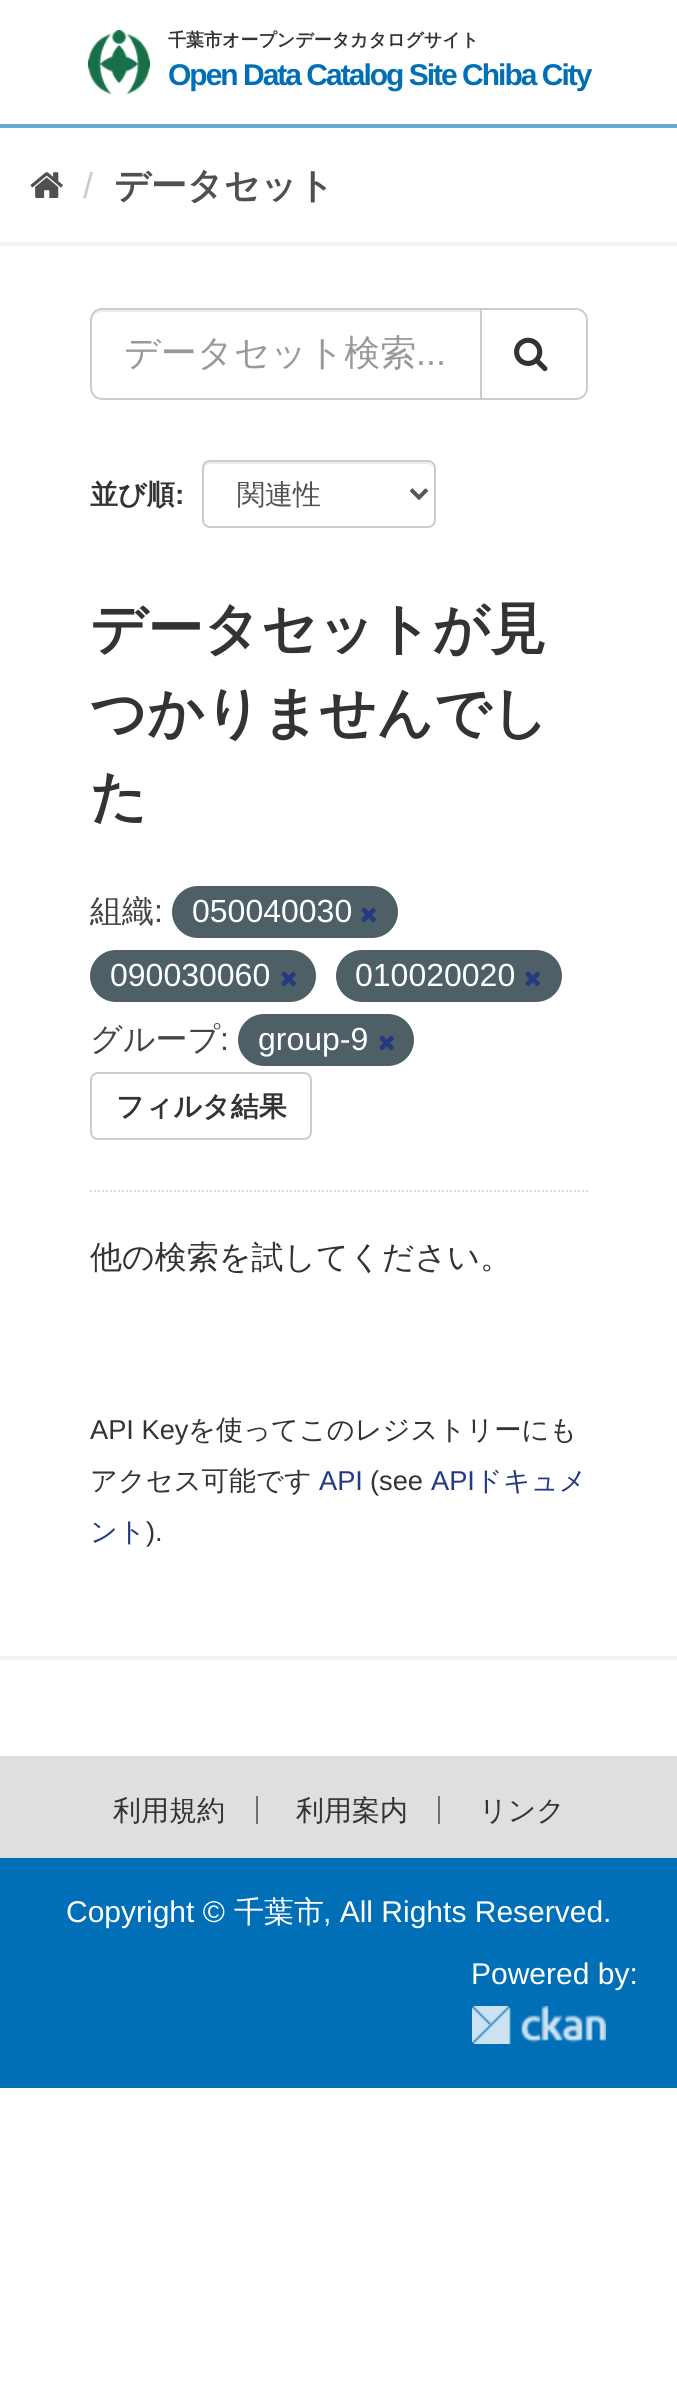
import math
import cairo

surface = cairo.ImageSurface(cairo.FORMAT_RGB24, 677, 2393)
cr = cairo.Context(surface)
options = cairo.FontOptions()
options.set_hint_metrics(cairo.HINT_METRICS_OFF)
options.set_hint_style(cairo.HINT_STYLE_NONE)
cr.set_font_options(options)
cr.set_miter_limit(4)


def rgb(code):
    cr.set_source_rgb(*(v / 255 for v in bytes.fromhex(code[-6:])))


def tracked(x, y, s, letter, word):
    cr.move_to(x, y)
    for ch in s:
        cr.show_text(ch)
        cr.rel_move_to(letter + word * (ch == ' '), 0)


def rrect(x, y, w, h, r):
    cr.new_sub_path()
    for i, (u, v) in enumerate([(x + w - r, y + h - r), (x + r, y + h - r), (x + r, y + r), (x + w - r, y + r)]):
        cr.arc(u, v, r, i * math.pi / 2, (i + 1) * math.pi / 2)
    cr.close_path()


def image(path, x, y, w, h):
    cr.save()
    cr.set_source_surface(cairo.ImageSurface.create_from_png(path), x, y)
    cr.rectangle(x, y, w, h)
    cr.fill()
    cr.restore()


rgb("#ffffff")
cr.paint()
rgb("#66a9d4")
cr.rectangle(0, 124, 677, 4)
cr.fill()
image("img/1.png", 88, 30, 62, 64)
image("img/2.png", 30, 172, 33, 26)
cr.rectangle(-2, 244, 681, 1414)
rgb("#f2f2f2")
cr.set_line_width(4)
cr.stroke()
cr.new_path()
cr.move_to(90, 1191)
cr.line_to(588, 1191)
rgb("#dddddd")
cr.set_line_width(2)
cr.set_dash([2, 2])
cr.stroke()
rgb("#ececec")
cr.new_path()
cr.move_to(102, 312)
cr.line_to(480, 312)
cr.line_to(480, 310)
cr.line_to(102, 310)
cr.curve_to(95, 310, 92, 316, 92, 322)
cr.curve_to(92, 316, 96, 312, 102, 312)
cr.close_path()
cr.fill()
cr.new_path()
cr.move_to(102, 309)
cr.line_to(481, 309)
cr.line_to(481, 399)
cr.line_to(102, 399)
cr.curve_to(96, 399, 91, 394, 91, 388)
cr.line_to(91, 320)
cr.curve_to(91, 314, 96, 309, 102, 309)
cr.close_path()
rgb("#cccccc")
cr.set_dash([])
cr.stroke()
rgb("#ffffff")
cr.new_path()
cr.move_to(481, 309)
cr.line_to(576, 309)
cr.curve_to(582, 309, 587, 314, 587, 320)
cr.line_to(587, 388)
cr.curve_to(587, 394, 582, 399, 576, 399)
cr.line_to(481, 399)
cr.close_path()
cr.fill_preserve()
rgb("#cccccc")
cr.stroke()
image("img/3.png", 514, 337, 34, 35)
rgb("#ececec")
cr.new_path()
cr.move_to(210, 464)
cr.line_to(428, 464)
cr.curve_to(431, 464, 434, 467, 434, 470)
cr.line_to(434, 468)
cr.curve_to(434, 465, 431, 462, 428, 462)
cr.line_to(210, 462)
cr.curve_to(207, 462, 204, 465, 204, 468)
cr.line_to(204, 470)
cr.curve_to(204, 467, 207, 464, 210, 464)
cr.close_path()
cr.fill()
rrect(203, 461, 232, 66, 7)
rgb("#cccccc")
cr.stroke()
cr.new_path()
cr.move_to(411, 489.5)
cr.line_to(419, 497.5)
cr.line_to(427, 489.5)
rgb("#555555")
cr.set_line_width(4)
cr.stroke()
rgb("#4e5f65")
rrect(172, 886, 226, 52, 26)
cr.fill()
image("img/4.png", 361, 907, 15, 16)
rrect(90, 950, 226, 52, 26)
cr.fill()
image("img/4.png", 281, 971, 15, 16)
rrect(336, 950, 226, 52, 26)
cr.fill()
image("img/4.png", 525, 971, 15, 16)
rrect(238, 1014, 176, 52, 26)
cr.fill()
image("img/4.png", 379, 1035, 15, 16)
rrect(91, 1073, 220, 66, 7)
rgb("#cccccc")
cr.set_line_width(2)
cr.stroke()
for x, y, w, h, color in [
    (0, 1858, 677, 230, "#006fb7"),
    (0, 1756, 677, 102, "#dfdfdf"),
    (256, 1796, 2, 28, "#707070"),
    (438, 1796, 2, 28, "#707070"),
]:
    rgb(color)
    cr.rectangle(x, y, w, h)
    cr.fill()
image("img/5.png", 472, 2006, 134, 38)
cr.select_font_face("WenQuanYi Zen Hei", cairo.FONT_SLANT_NORMAL, cairo.FONT_WEIGHT_BOLD)
cr.set_font_size(18)
rgb("#333333")
cr.move_to(168, 46)
cr.show_text("千葉市オープンデータカタログサイト")
cr.select_font_face("Liberation Sans", cairo.FONT_SLANT_NORMAL, cairo.FONT_WEIGHT_BOLD)
cr.set_font_size(30)
rgb("#006fb7")
tracked(168, 85, "Open Data Catalog Site Chiba City", -2, 0)
cr.select_font_face("Liberation Sans")
cr.set_font_size(36)
rgb("#cccccc")
cr.move_to(83, 198)
cr.show_text("/")
cr.select_font_face("WenQuanYi Zen Hei", cairo.FONT_SLANT_NORMAL, cairo.FONT_WEIGHT_BOLD)
rgb("#505050")
cr.move_to(114, 198)
cr.show_text("データセット")
cr.select_font_face("WenQuanYi Zen Hei Medium")
rgb("#999999")
cr.move_to(124, 365)
cr.show_text("データセット検索")
cr.select_font_face("Liberation Sans")
cr.move_to(416, 365)
cr.show_text("...")
cr.select_font_face("WenQuanYi Zen Hei", cairo.FONT_SLANT_NORMAL, cairo.FONT_WEIGHT_BOLD)
cr.set_font_size(28)
rgb("#333333")
cr.move_to(90, 504)
cr.show_text("並び順")
cr.select_font_face("Liberation Sans", cairo.FONT_SLANT_NORMAL, cairo.FONT_WEIGHT_BOLD)
cr.move_to(175, 504)
cr.show_text(":")
cr.select_font_face("WenQuanYi Zen Hei Medium")
rgb("#505050")
cr.move_to(237, 504)
cr.show_text("関連性")
cr.select_font_face("WenQuanYi Zen Hei", cairo.FONT_SLANT_NORMAL, cairo.FONT_WEIGHT_BOLD)
cr.set_font_size(56)
rgb("#333333")
for x, y, s in [
    (90, 648, "データセットが見"),
    (90, 732, "つかりませんでし"),
    (90, 816, "た"),
]:
    cr.move_to(x, y)
    cr.show_text(s)
cr.select_font_face("WenQuanYi Zen Hei Medium")
cr.set_font_size(32)
rgb("#444444")
cr.move_to(90, 922)
cr.show_text("組織")
cr.select_font_face("Liberation Sans")
cr.move_to(154, 922)
cr.show_text(":")
rgb("#ffffff")
for x, y, s in [
    (192, 922, "050040030"),
    (110, 986, "090030060"),
    (355, 986, "010020020"),
]:
    cr.move_to(x, y)
    cr.show_text(s)
cr.select_font_face("WenQuanYi Zen Hei Medium")
rgb("#444444")
cr.move_to(90, 1050)
cr.show_text("グループ")
cr.select_font_face("Liberation Sans")
cr.move_to(220, 1050)
cr.show_text(":")
rgb("#ffffff")
cr.move_to(258, 1050)
cr.show_text("group-9")
cr.select_font_face("WenQuanYi Zen Hei", cairo.FONT_SLANT_NORMAL, cairo.FONT_WEIGHT_BOLD)
cr.set_font_size(28)
rgb("#333333")
cr.move_to(116, 1116)
cr.show_text("フィルタ結果")
cr.select_font_face("WenQuanYi Zen Hei Medium")
cr.set_font_size(32)
cr.move_to(90, 1268)
cr.show_text("他の検索を試してください。")
cr.select_font_face("Liberation Sans")
cr.set_font_size(27.25)
cr.move_to(90, 1439)
cr.show_text("API Key")
cr.select_font_face("WenQuanYi Zen Hei Medium")
cr.move_to(188, 1439)
cr.show_text("を使ってこのレジストリーにも")
cr.move_to(90, 1490)
cr.show_text("アクセス可能です")
cr.select_font_face("Liberation Sans")
rgb("#24397f")
cr.move_to(319, 1490)
cr.show_text("API")
rgb("#333333")
cr.move_to(370, 1490)
cr.show_text("(see")
rgb("#24397f")
cr.move_to(431, 1490)
cr.show_text("API")
cr.select_font_face("WenQuanYi Zen Hei Medium")
cr.move_to(475, 1490)
cr.show_text("ドキュメ")
cr.move_to(90, 1541)
cr.show_text("ント")
cr.select_font_face("Liberation Sans")
rgb("#333333")
cr.move_to(146, 1541)
cr.show_text(").")
cr.select_font_face("WenQuanYi Zen Hei Medium")
cr.set_font_size(28)
for x, y, s in [
    (113, 1820, "利用規約"),
    (296, 1820, "利用案内"),
    (479, 1820, "リンク"),
]:
    cr.move_to(x, y)
    cr.show_text(s)
cr.select_font_face("Liberation Sans")
cr.set_font_size(30)
rgb("#ffffff")
cr.move_to(66, 1922)
cr.show_text("Copyright ©")
cr.select_font_face("WenQuanYi Zen Hei Medium")
cr.move_to(234, 1922)
cr.show_text("千葉市")
cr.select_font_face("Liberation Sans")
cr.move_to(323, 1922)
cr.show_text(", All Rights Reserved.")
cr.move_to(471, 1984)
cr.show_text("Powered by:")
surface.write_to_png("page.png")
